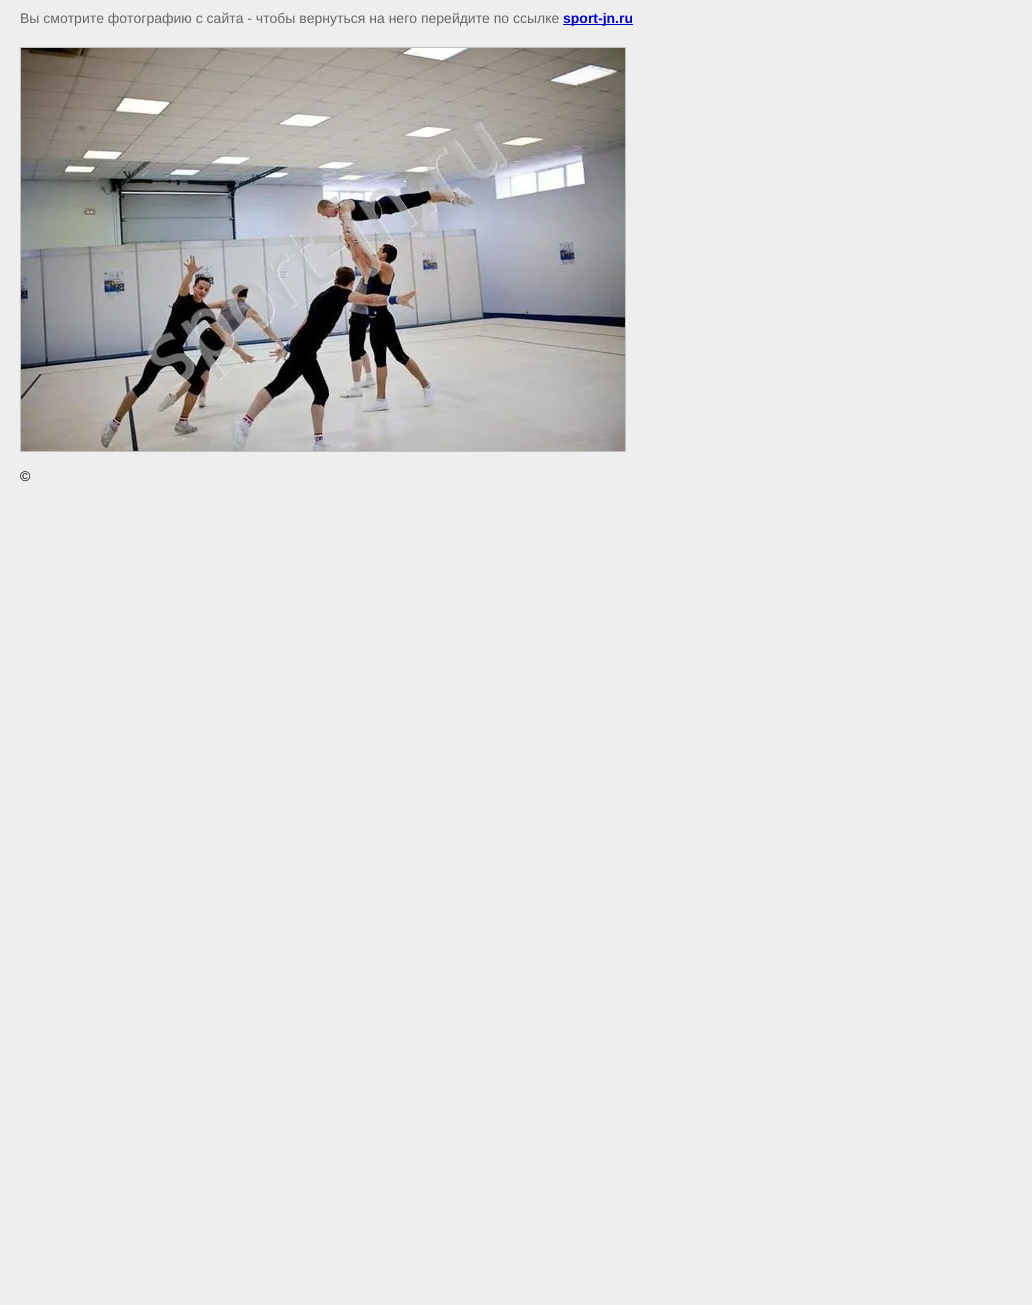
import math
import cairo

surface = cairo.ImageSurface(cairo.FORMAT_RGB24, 1032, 1305)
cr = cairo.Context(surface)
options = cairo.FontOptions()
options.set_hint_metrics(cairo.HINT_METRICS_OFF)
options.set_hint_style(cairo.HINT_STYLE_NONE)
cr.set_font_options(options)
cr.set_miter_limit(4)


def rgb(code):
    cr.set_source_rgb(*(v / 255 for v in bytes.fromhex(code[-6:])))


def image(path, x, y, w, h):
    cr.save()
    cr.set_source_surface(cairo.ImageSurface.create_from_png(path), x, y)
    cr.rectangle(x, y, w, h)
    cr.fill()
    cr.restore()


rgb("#eeeeee")
cr.paint()
rgb("#0000cc")
cr.rectangle(563, 24, 70, 1)
cr.fill()
cr.rectangle(20.5, 47.5, 605, 404)
rgb("#c0c0c0")
cr.set_line_width(1)
cr.stroke()
image("img/1.png", 21, 48, 604, 403)
cr.select_font_face("Liberation Sans")
cr.set_font_size(14)
rgb("#666666")
cr.move_to(20, 23)
cr.show_text("Вы смотрите фотографию с сайта - чтобы вернуться на него перейдите по ссылке")
cr.select_font_face("Liberation Sans", cairo.FONT_SLANT_NORMAL, cairo.FONT_WEIGHT_BOLD)
rgb("#0000cc")
cr.move_to(563, 23)
cr.show_text("sport-jn.ru")
cr.select_font_face("Liberation Sans")
rgb("#000000")
cr.move_to(20, 481)
cr.show_text("©")
surface.write_to_png("page.png")
